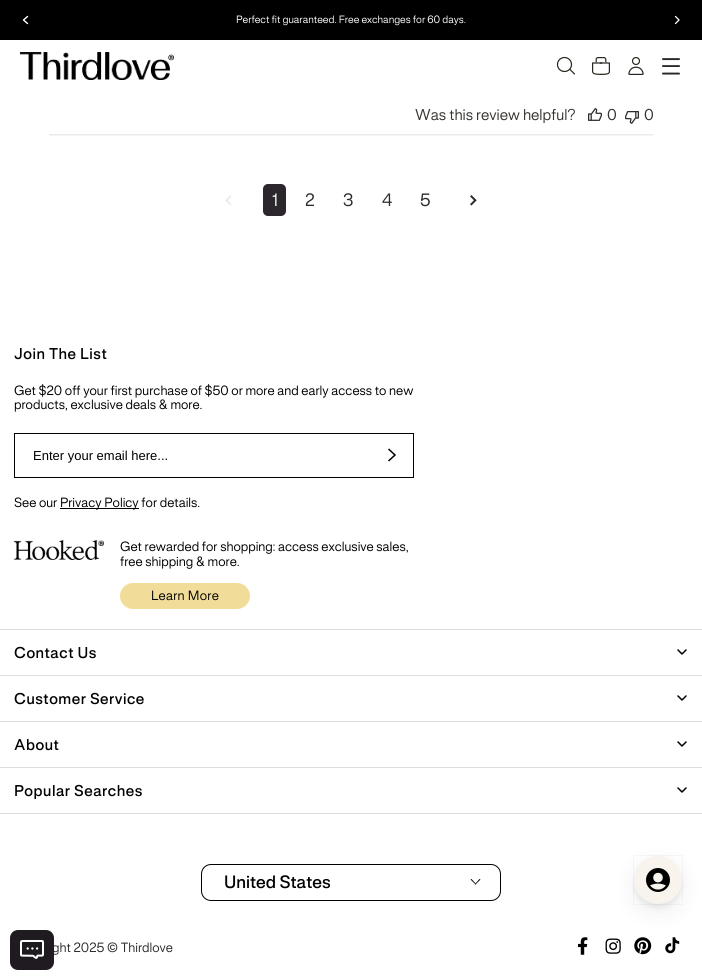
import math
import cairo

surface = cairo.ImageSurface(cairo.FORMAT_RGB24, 702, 980)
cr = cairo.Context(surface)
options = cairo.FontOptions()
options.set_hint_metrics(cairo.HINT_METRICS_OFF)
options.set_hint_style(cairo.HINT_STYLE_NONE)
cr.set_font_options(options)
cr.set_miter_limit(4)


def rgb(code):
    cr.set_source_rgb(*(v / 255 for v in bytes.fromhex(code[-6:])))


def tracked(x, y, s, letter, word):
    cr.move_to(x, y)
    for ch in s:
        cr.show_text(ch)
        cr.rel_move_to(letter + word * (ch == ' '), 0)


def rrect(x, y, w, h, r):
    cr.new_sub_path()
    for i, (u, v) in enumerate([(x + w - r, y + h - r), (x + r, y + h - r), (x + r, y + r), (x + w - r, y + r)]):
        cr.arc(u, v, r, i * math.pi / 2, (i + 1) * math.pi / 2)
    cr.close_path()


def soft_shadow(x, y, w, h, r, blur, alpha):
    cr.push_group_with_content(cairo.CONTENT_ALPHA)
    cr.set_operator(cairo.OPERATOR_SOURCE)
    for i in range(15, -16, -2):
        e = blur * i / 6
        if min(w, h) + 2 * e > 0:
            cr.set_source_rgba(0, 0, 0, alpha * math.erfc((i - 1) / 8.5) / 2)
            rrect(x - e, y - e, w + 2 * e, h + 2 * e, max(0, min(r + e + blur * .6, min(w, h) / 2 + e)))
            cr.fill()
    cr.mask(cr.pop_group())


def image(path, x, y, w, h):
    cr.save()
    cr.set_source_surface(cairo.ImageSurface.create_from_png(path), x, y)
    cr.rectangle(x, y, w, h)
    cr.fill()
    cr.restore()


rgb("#ffffff")
cr.paint()
rgb("#000000")
cr.rectangle(0, 0, 702, 40)
cr.fill()
cr.new_path()
cr.move_to(27.5, 16.5)
cr.line_to(23.5, 20)
cr.line_to(27.5, 23.5)
rgb("#ffffff")
cr.set_line_width(1.4)
cr.set_line_cap(cairo.LINE_CAP_ROUND)
cr.set_line_join(cairo.LINE_JOIN_ROUND)
cr.stroke()
cr.new_path()
cr.move_to(675.5, 16.5)
cr.line_to(679, 20)
cr.line_to(675.5, 23.5)
cr.set_line_width(1.3)
cr.stroke()
image("img/1.png", 20, 52, 154, 28)
cr.arc(564.5, 64.5, 7, 0, 2 * math.pi)
rgb("#25261e")
cr.set_line_width(1.2)
cr.set_line_cap(cairo.LINE_CAP_BUTT)
cr.set_line_join(cairo.LINE_JOIN_MITER)
cr.stroke()
cr.new_path()
cr.move_to(570, 69.5)
cr.line_to(574.5, 74)
cr.set_line_cap(cairo.LINE_CAP_ROUND)
cr.set_line_join(cairo.LINE_JOIN_ROUND)
cr.stroke()
image("img/2.png", 592, 57, 18, 18)
image("img/3.png", 628, 57, 16, 18)
image("img/4.png", 662, 58, 18, 17)
image("img/5.png", 588, 108, 14, 13)
image("img/6.png", 625, 111, 14, 13)
image("img/7.png", 49, 134, 604, 2)
image("img/8.png", 225, 195, 7, 11)
rgb("#2c272d")
rrect(263, 184, 23, 32, 5)
cr.fill()
image("img/9.png", 470, 195, 7, 11)
rgb("#dddddd")
cr.rectangle(0, 629, 702, 1)
cr.fill()
cr.rectangle(14.5, 433.5, 399, 44)
rgb("#000000")
cr.set_line_width(1)
cr.set_line_cap(cairo.LINE_CAP_BUTT)
cr.set_line_join(cairo.LINE_JOIN_MITER)
cr.stroke()
cr.new_path()
cr.move_to(388.5, 449)
cr.line_to(395, 455)
cr.line_to(388.5, 461)
cr.set_line_width(1.5)
cr.stroke()
cr.rectangle(60, 508, 79, 1)
cr.fill()
image("img/10.png", 14, 540, 90, 20)
rgb("#f1dd99")
rrect(120, 583, 130, 26, 13)
cr.fill()
rgb("#dddddd")
cr.rectangle(0, 675, 702, 1)
cr.fill()
cr.new_path()
cr.move_to(678, 650)
cr.line_to(682, 654)
cr.line_to(686, 650)
rgb("#000000")
cr.set_line_cap(cairo.LINE_CAP_ROUND)
cr.set_line_join(cairo.LINE_JOIN_ROUND)
cr.stroke()
rgb("#dddddd")
cr.rectangle(0, 721, 702, 1)
cr.fill()
cr.new_path()
cr.move_to(678, 696)
cr.line_to(682, 700)
cr.line_to(686, 696)
rgb("#000000")
cr.stroke()
rgb("#dddddd")
cr.rectangle(0, 767, 702, 1)
cr.fill()
cr.new_path()
cr.move_to(678, 742)
cr.line_to(682, 746)
cr.line_to(686, 742)
rgb("#000000")
cr.stroke()
rgb("#dddddd")
cr.rectangle(0, 813, 702, 1)
cr.fill()
cr.new_path()
cr.move_to(678, 788)
cr.line_to(682, 792)
cr.line_to(686, 788)
rgb("#000000")
cr.stroke()
rrect(201.5, 864.5, 299, 36, 9.5)
cr.set_line_width(1)
cr.set_line_cap(cairo.LINE_CAP_BUTT)
cr.set_line_join(cairo.LINE_JOIN_MITER)
cr.stroke()
cr.new_path()
cr.move_to(475, 884)
cr.line_to(479.5, 879)
cr.line_to(480.5, 879.5)
cr.line_to(475.5, 884.5)
cr.close_path()
cr.fill()
cr.new_path()
cr.move_to(470.5, 879.5)
cr.line_to(471.5, 879)
cr.line_to(476, 884)
cr.line_to(475.5, 884.5)
cr.close_path()
cr.fill()
image("img/11.png", 578, 937, 10, 18)
image("img/12.png", 605, 938, 16, 16)
image("img/13.png", 634, 937, 18, 18)
image("img/14.png", 665, 937, 15, 17)
rgb("#373f47")
soft_shadow(634, 864, 48, 48, 24, 12, 0.08)
soft_shadow(634, 860, 48, 48, 24, 2, 0.08)
cr.rectangle(633.5, 855.5, 49, 49)
cr.set_source_rgba(0.216, 0.247, 0.278, 0.04)
cr.stroke()
rgb("#f8f3ed")
cr.arc(658, 880, 24, 0, 2 * math.pi)
cr.fill()
image("img/15.png", 646, 868, 24, 24)
cr.select_font_face("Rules")
cr.set_font_size(9.5)
rgb("#ffffff")
cr.move_to(236, 23)
cr.show_text("Perfect fit guaranteed. Free exchanges for 60 days.")
cr.set_font_size(14)
rgb("#373330")
for x, y, s in [
    (415, 120, "Was this review helpful?"),
    (607, 120, "0"),
    (644, 120, "0"),
]:
    cr.move_to(x, y)
    cr.show_text(s)
cr.set_font_size(16)
rgb("#ffffff")
cr.move_to(272, 206)
cr.show_text("1")
rgb("#2c2c2c")
for x, y, s in [
    (305, 206, "2"),
    (343, 206, "3"),
    (382, 206, "4"),
    (420, 206, "5"),
]:
    cr.move_to(x, y)
    cr.show_text(s)
cr.select_font_face("Rules Medium")
cr.set_font_size(14)
rgb("#000000")
tracked(14, 359, "Join The List", 0.5, 0)
cr.select_font_face("Rules")
cr.set_font_size(12)
cr.move_to(14, 395)
cr.show_text("Get $20 off your first purchase of $50 or more and early access to new")
cr.move_to(14, 409)
cr.show_text("products, exclusive deals & more.")
cr.select_font_face("Liberation Sans")
cr.set_font_size(13)
cr.move_to(33, 460)
cr.show_text("Enter your email here...")
cr.select_font_face("Rules")
cr.set_font_size(12)
for x, y, s in [
    (14, 507, "See our"),
    (60, 507, "Privacy Policy for details."),
    (120, 551, "Get rewarded for shopping: access exclusive sales,"),
    (120, 566, "free shipping & more."),
]:
    cr.move_to(x, y)
    cr.show_text(s)
tracked(151, 600, "Learn More", 0.25, 0)
cr.select_font_face("Rules Medium")
cr.set_font_size(14)
for x, y, s in [
    (14, 658, "Contact Us"),
    (14, 704, "Customer Service"),
    (14, 750, "About"),
    (14, 796, "Popular Searches"),
]:
    tracked(x, y, s, 0.5, 0)
cr.set_font_size(16)
cr.move_to(224, 888)
cr.show_text("United States")
cr.select_font_face("Rules")
cr.set_font_size(12)
rgb("#2c2c2c")
cr.move_to(52, 952)
cr.show_text("ght 2025 © Thirdlove")
rgb("#1f1b20")
rrect(10, 930, 44, 40, 8)
cr.fill()
image("img/16.png", 20, 940, 24, 19)
surface.write_to_png("page.png")
